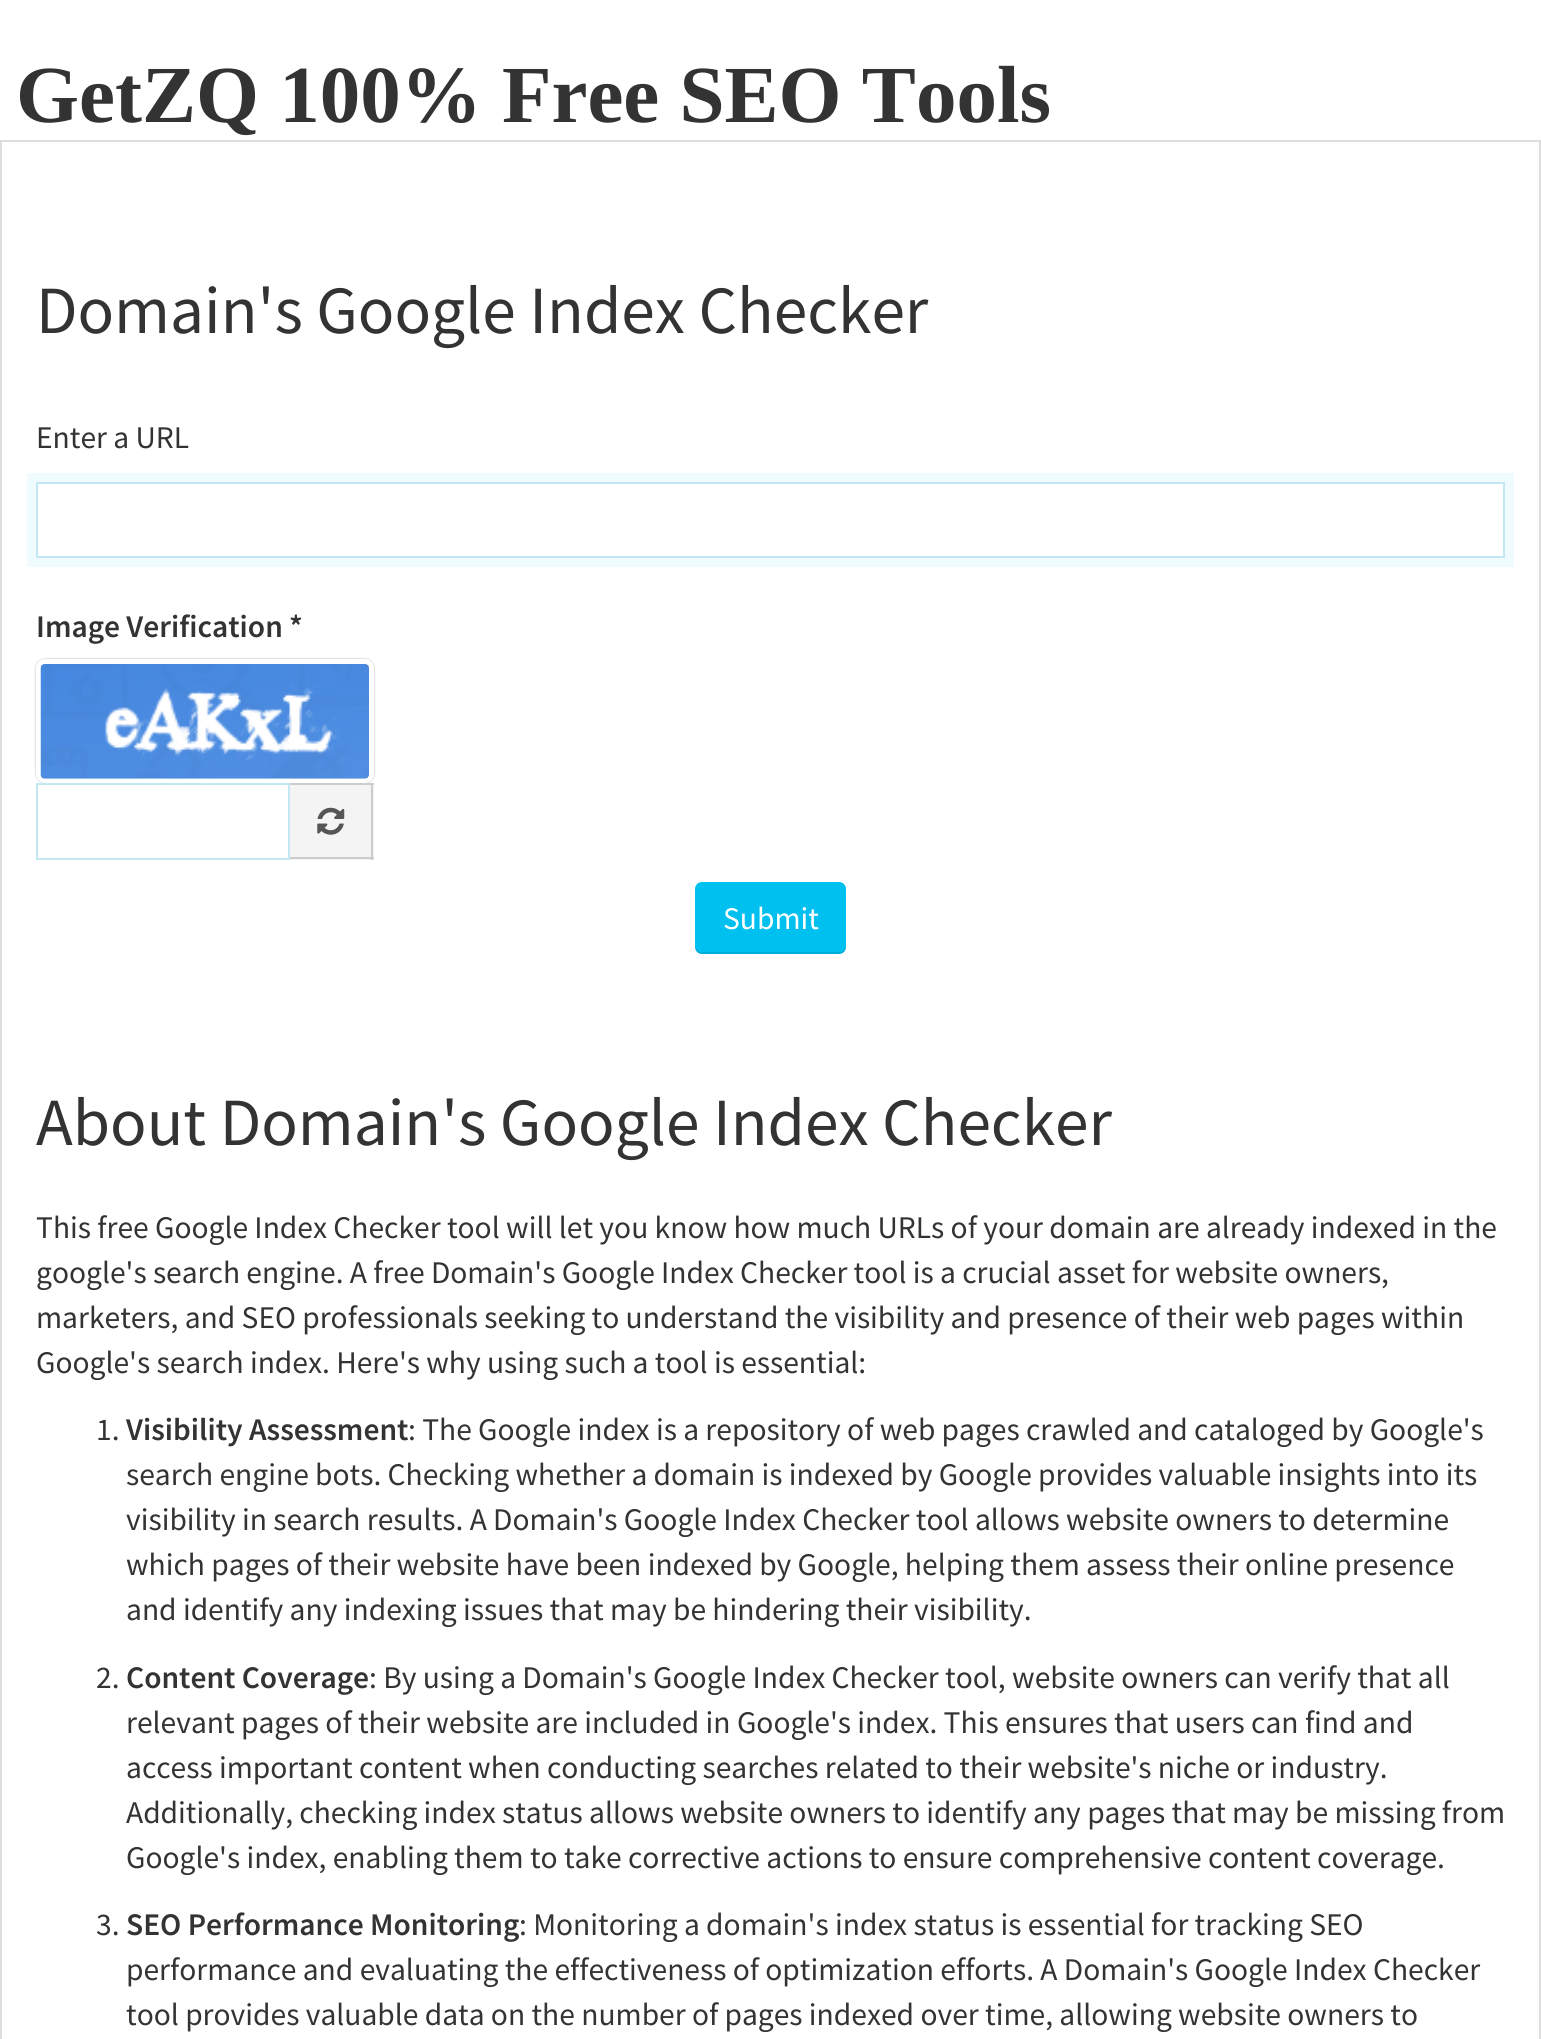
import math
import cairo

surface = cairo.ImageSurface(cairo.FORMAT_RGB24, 1541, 2039)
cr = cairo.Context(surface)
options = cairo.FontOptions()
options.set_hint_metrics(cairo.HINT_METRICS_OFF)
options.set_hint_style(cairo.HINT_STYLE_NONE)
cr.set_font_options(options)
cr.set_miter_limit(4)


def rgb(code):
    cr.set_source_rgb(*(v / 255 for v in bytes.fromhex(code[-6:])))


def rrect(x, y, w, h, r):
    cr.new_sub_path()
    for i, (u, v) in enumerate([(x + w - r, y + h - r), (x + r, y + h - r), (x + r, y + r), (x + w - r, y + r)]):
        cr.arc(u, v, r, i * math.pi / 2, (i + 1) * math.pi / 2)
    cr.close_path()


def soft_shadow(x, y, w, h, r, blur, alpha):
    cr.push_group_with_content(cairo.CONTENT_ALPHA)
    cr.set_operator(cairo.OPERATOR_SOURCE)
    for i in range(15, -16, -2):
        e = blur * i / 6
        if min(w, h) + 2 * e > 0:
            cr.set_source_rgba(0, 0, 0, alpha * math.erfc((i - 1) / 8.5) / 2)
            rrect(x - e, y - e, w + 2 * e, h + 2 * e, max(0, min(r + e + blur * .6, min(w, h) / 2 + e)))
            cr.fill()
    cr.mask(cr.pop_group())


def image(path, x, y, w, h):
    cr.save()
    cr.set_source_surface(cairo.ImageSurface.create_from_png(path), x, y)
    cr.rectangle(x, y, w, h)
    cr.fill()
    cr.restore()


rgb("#ffffff")
cr.paint()
cr.rectangle(1, 141, 1539, 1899)
rgb("#dddddd")
cr.stroke()
cr.rectangle(31.5, 477.5, 1478, 85)
rgb("#f0fbff")
cr.set_line_width(9)
cr.stroke()
cr.rectangle(37, 483, 1467, 74)
rgb("#c3e8f4")
cr.set_line_width(2)
cr.stroke()
rgb("#000000")
soft_shadow(36, 659, 338, 124, 9, 1, 0.3)
rrect(38.5, 661.5, 333, 119, 6.5)
rgb("#ffffff")
cr.set_line_width(5)
cr.stroke()
image("img/1.png", 40, 664, 329, 115)
cr.rectangle(37, 784, 252, 75)
rgb("#c3e8f4")
cr.set_line_width(2)
cr.stroke()
for x, y, w, h, color in [
    (290, 785, 84, 75, "#f4f4f4"),
    (290, 783, 84, 2, "#cccccc"),
    (371, 783, 2, 77, "#cccccc"),
    (290, 857, 84, 2, "#cccccc"),
]:
    rgb(color)
    cr.rectangle(x, y, w, h)
    cr.fill()
image("img/2.png", 317, 807, 28, 28)
rgb("#00c0ef")
rrect(695, 882, 151, 72, 7)
cr.fill()
cr.set_source_rgba(0, 0, 0, 0.09)
cr.new_path()
cr.move_to(695, 945)
cr.line_to(695, 947)
cr.curve_to(695, 951, 698, 954, 702, 954)
cr.line_to(839, 954)
cr.curve_to(843, 954, 846, 951, 846, 947)
cr.line_to(846, 945)
cr.curve_to(846, 949, 843, 952, 839, 952)
cr.line_to(702, 952)
cr.curve_to(698, 952, 695, 949, 695, 945)
cr.close_path()
cr.fill()
cr.select_font_face("Liberation Serif", cairo.FONT_SLANT_NORMAL, cairo.FONT_WEIGHT_BOLD)
cr.set_font_size(81)
rgb("#333333")
cr.move_to(16, 122)
cr.show_text("GetZQ 100% Free SEO Tools")
cr.select_font_face("Source Sans Pro")
cr.set_font_size(67.5)
cr.move_to(36, 333)
cr.show_text("Domain's Google Index Checker")
cr.set_font_size(31.5)
cr.move_to(36, 448)
cr.show_text("Enter a URL")
cr.select_font_face("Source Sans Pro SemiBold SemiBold")
cr.move_to(36, 637)
cr.show_text("Image Verification *")
cr.select_font_face("Source Sans Pro")
rgb("#ffffff")
cr.move_to(723, 929)
cr.show_text("Submit")
cr.set_font_size(67.5)
rgb("#333333")
cr.move_to(36, 1145)
cr.show_text("About Domain's Google Index Checker")
cr.set_font_size(31.5)
for x, y, s in [
    (36, 1238, "This free Google Index Checker tool will let you know how much URLs of your domain are already indexed in the"),
    (36, 1283, "google's search engine. A free Domain's Google Index Checker tool is a crucial asset for website owners,"),
    (36, 1328, "marketers, and SEO professionals seeking to understand the visibility and presence of their web pages within"),
    (36, 1373, "Google's search index. Here's why using such a tool is essential:"),
    (96, 1440, "1."),
]:
    cr.move_to(x, y)
    cr.show_text(s)
cr.select_font_face("Source Sans Pro SemiBold SemiBold")
cr.move_to(126, 1440)
cr.show_text("Visibility Assessment")
cr.select_font_face("Source Sans Pro")
for x, y, s in [
    (408, 1440, ": The Google index is a repository of web pages crawled and cataloged by Google's"),
    (126, 1485, "search engine bots. Checking whether a domain is indexed by Google provides valuable insights into its"),
    (126, 1530, "visibility in search results. A Domain's Google Index Checker tool allows website owners to determine"),
    (126, 1575, "which pages of their website have been indexed by Google, helping them assess their online presence"),
    (126, 1620, "and identify any indexing issues that may be hindering their visibility."),
    (96, 1688, "2."),
]:
    cr.move_to(x, y)
    cr.show_text(s)
cr.select_font_face("Source Sans Pro SemiBold SemiBold")
cr.move_to(126, 1688)
cr.show_text("Content Coverage")
cr.select_font_face("Source Sans Pro")
for x, y, s in [
    (369, 1688, ": By using a Domain's Google Index Checker tool, website owners can verify that all"),
    (126, 1733, "relevant pages of their website are included in Google's index. This ensures that users can find and"),
    (126, 1778, "access important content when conducting searches related to their website's niche or industry."),
    (126, 1823, "Additionally, checking index status allows website owners to identify any pages that may be missing from"),
    (126, 1868, "Google's index, enabling them to take corrective actions to ensure comprehensive content coverage."),
    (96, 1935, "3."),
]:
    cr.move_to(x, y)
    cr.show_text(s)
cr.select_font_face("Source Sans Pro SemiBold SemiBold")
cr.move_to(126, 1935)
cr.show_text("SEO Performance Monitoring")
cr.select_font_face("Source Sans Pro")
for x, y, s in [
    (519, 1935, ": Monitoring a domain's index status is essential for tracking SEO"),
    (126, 1980, "performance and evaluating the effectiveness of optimization efforts. A Domain's Google Index Checker"),
    (126, 2025, "tool provides valuable data on the number of pages indexed over time, allowing website owners to"),
]:
    cr.move_to(x, y)
    cr.show_text(s)
surface.write_to_png("page.png")
